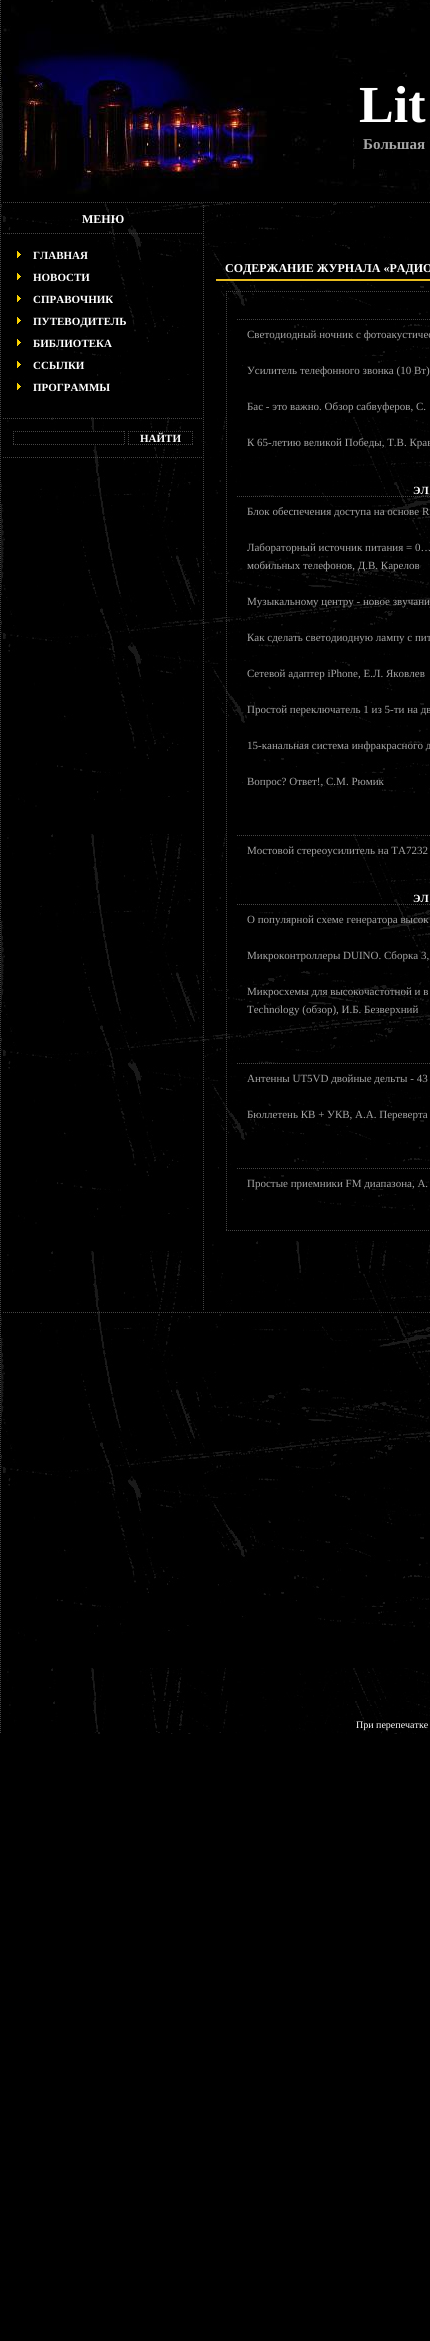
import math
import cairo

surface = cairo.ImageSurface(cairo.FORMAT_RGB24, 430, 2341)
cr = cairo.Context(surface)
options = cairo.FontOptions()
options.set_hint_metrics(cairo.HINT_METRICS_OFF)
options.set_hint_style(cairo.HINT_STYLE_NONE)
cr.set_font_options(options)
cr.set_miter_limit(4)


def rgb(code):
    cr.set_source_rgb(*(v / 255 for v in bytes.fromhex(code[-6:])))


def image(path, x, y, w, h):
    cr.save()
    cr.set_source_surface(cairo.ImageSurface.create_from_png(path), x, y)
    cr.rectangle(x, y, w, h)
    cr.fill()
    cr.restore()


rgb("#000000")
cr.paint()
image("img/1.png", 0, 0, 430, 1734)
cr.new_path()
cr.move_to(0.5, 0)
cr.line_to(0.5, 1734)
rgb("#454545")
cr.set_line_width(1)
cr.set_dash([1, 1])
cr.stroke()
image("img/2.png", 3, 2, 427, 201)
cr.new_path()
cr.move_to(3, 202.5)
cr.line_to(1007, 202.5)
cr.stroke()
image("img/3.png", 353, 72, 77, 97)
image("img/4.png", 359, 74, 48, 20)
cr.new_path()
cr.move_to(203.5, 205)
cr.line_to(203.5, 1310)
cr.stroke()
cr.new_path()
cr.move_to(3, 233.5)
cr.line_to(203, 233.5)
cr.stroke()
image("img/5.png", 17, 251, 4, 7)
image("img/5.png", 17, 273, 4, 7)
image("img/5.png", 17, 295, 4, 7)
image("img/5.png", 17, 317, 4, 7)
image("img/5.png", 17, 339, 4, 7)
image("img/5.png", 17, 361, 4, 7)
image("img/6.png", 17, 383, 4, 7)
cr.new_path()
cr.move_to(3, 418.5)
cr.line_to(203, 418.5)
cr.stroke()
rgb("#000000")
cr.rectangle(49, 431, 54, 14)
cr.fill()
cr.new_path()
cr.move_to(13, 431.5)
cr.line_to(125, 431.5)
rgb("#454545")
cr.stroke()
cr.new_path()
cr.move_to(124.5, 431)
cr.line_to(124.5, 445)
cr.stroke()
cr.new_path()
cr.move_to(13, 444.5)
cr.line_to(125, 444.5)
cr.stroke()
cr.new_path()
cr.move_to(13.5, 431)
cr.line_to(13.5, 445)
cr.stroke()
rgb("#000000")
cr.rectangle(142, 431, 49, 14)
cr.fill()
cr.new_path()
cr.move_to(128, 431.5)
cr.line_to(193, 431.5)
rgb("#454545")
cr.stroke()
cr.new_path()
cr.move_to(192.5, 431)
cr.line_to(192.5, 445)
cr.stroke()
cr.new_path()
cr.move_to(128, 444.5)
cr.line_to(193, 444.5)
cr.stroke()
cr.new_path()
cr.move_to(128.5, 431)
cr.line_to(128.5, 445)
cr.stroke()
cr.new_path()
cr.move_to(3, 457.5)
cr.line_to(203, 457.5)
cr.stroke()
rgb("#eabd1d")
cr.rectangle(216, 279, 214, 2)
cr.fill()
cr.new_path()
cr.move_to(226, 291.5)
cr.line_to(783, 291.5)
rgb("#454545")
cr.stroke()
cr.new_path()
cr.move_to(226, 1230.5)
cr.line_to(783, 1230.5)
cr.stroke()
cr.new_path()
cr.move_to(226.5, 291)
cr.line_to(226.5, 1231)
cr.stroke()
cr.new_path()
cr.move_to(237, 319.5)
cr.line_to(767, 319.5)
cr.stroke()
cr.new_path()
cr.move_to(237, 496.5)
cr.line_to(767, 496.5)
cr.stroke()
cr.new_path()
cr.move_to(237, 835.5)
cr.line_to(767, 835.5)
cr.stroke()
cr.new_path()
cr.move_to(237, 904.5)
cr.line_to(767, 904.5)
cr.stroke()
cr.new_path()
cr.move_to(237, 1063.5)
cr.line_to(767, 1063.5)
cr.stroke()
cr.new_path()
cr.move_to(237, 1168.5)
cr.line_to(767, 1168.5)
cr.stroke()
image("img/7.png", 212, 1241, 218, 32)
cr.new_path()
cr.move_to(3, 1312.5)
cr.line_to(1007, 1312.5)
cr.stroke()
image("img/8.png", 9, 1701, 421, 31)
cr.select_font_face("Liberation Serif", cairo.FONT_SLANT_NORMAL, cairo.FONT_WEIGHT_BOLD)
cr.set_font_size(52)
rgb("#ffffff")
cr.move_to(359, 122)
cr.show_text("Lit")
cr.set_font_size(15)
rgb("#a5a5a5")
cr.move_to(363, 149)
cr.show_text("Большая")
cr.set_font_size(12)
rgb("#ffffff")
cr.move_to(82, 223)
cr.show_text("МЕНЮ")
cr.set_font_size(11)
for x, y, s in [
    (33, 259, "ГЛАВНАЯ"),
    (33, 281, "НОВОСТИ"),
    (33, 303, "СПРАВОЧНИК"),
    (33, 325, "ПУТЕВОДИТЕЛЬ"),
    (33, 347, "БИБЛИОТЕКА"),
    (33, 369, "ССЫЛКИ"),
    (33, 391, "ПРОГРАММЫ"),
    (140, 442, "НАЙТИ"),
]:
    cr.move_to(x, y)
    cr.show_text(s)
cr.set_font_size(12)
cr.move_to(225, 272)
cr.show_text("СОДЕРЖАНИЕ ЖУРНАЛА «РАДИО")
cr.select_font_face("Liberation Serif")
cr.set_font_size(11)
rgb("#a5a5a5")
for x, y, s in [
    (247, 338, "Светодиодный ночник с фотоакустичес"),
    (247, 374, "Усилитель телефонного звонка (10 Вт)"),
    (247, 410, "Бас - это важно. Обзор сабвуферов, С."),
    (247, 446, "К 65-летию великой Победы, Т.В. Крав"),
]:
    cr.move_to(x, y)
    cr.show_text(s)
cr.select_font_face("Liberation Serif", cairo.FONT_SLANT_NORMAL, cairo.FONT_WEIGHT_BOLD)
rgb("#ffffff")
cr.move_to(413, 494)
cr.show_text("ЭЛ")
cr.select_font_face("Liberation Serif")
rgb("#a5a5a5")
for x, y, s in [
    (247, 515, "Блок обеспечения доступа на основе R"),
    (247, 551, "Лабораторный источник питания = 0…"),
    (247, 569, "мобильных телефонов, Д.В. Карелов"),
    (247, 605, "Музыкальному центру - новое звучани"),
    (247, 641, "Как сделать светодиодную лампу с пит"),
    (247, 677, "Сетевой адаптер iPhone, Е.Л. Яковлев"),
    (247, 713, "Простой переключатель 1 из 5-ти на дв"),
    (247, 749, "15-канальная система инфракрасного д"),
    (247, 785, "Вопрос? Ответ!, С.М. Рюмик"),
    (247, 854, "Мостовой стереоусилитель на TA7232"),
]:
    cr.move_to(x, y)
    cr.show_text(s)
cr.select_font_face("Liberation Serif", cairo.FONT_SLANT_NORMAL, cairo.FONT_WEIGHT_BOLD)
rgb("#ffffff")
cr.move_to(413, 902)
cr.show_text("ЭЛ")
cr.select_font_face("Liberation Serif")
rgb("#a5a5a5")
for x, y, s in [
    (247, 923, "О популярной схеме генератора высок"),
    (247, 959, "Микроконтроллеры DUINO. Сборка 3,"),
    (247, 995, "Микросхемы для высокочастотной и в"),
    (247, 1013, "Technology (обзор), И.Б. Безверхний"),
    (247, 1082, "Антенны UT5VD двойные дельты - 43"),
    (247, 1118, "Бюллетень КВ + УКВ, А.А. Переверта"),
    (247, 1187, "Простые приемники FM диапазона, А."),
]:
    cr.move_to(x, y)
    cr.show_text(s)
cr.set_font_size(10)
rgb("#ffffff")
cr.move_to(356, 1728)
cr.show_text("При перепечатке")
surface.write_to_png("page.png")
